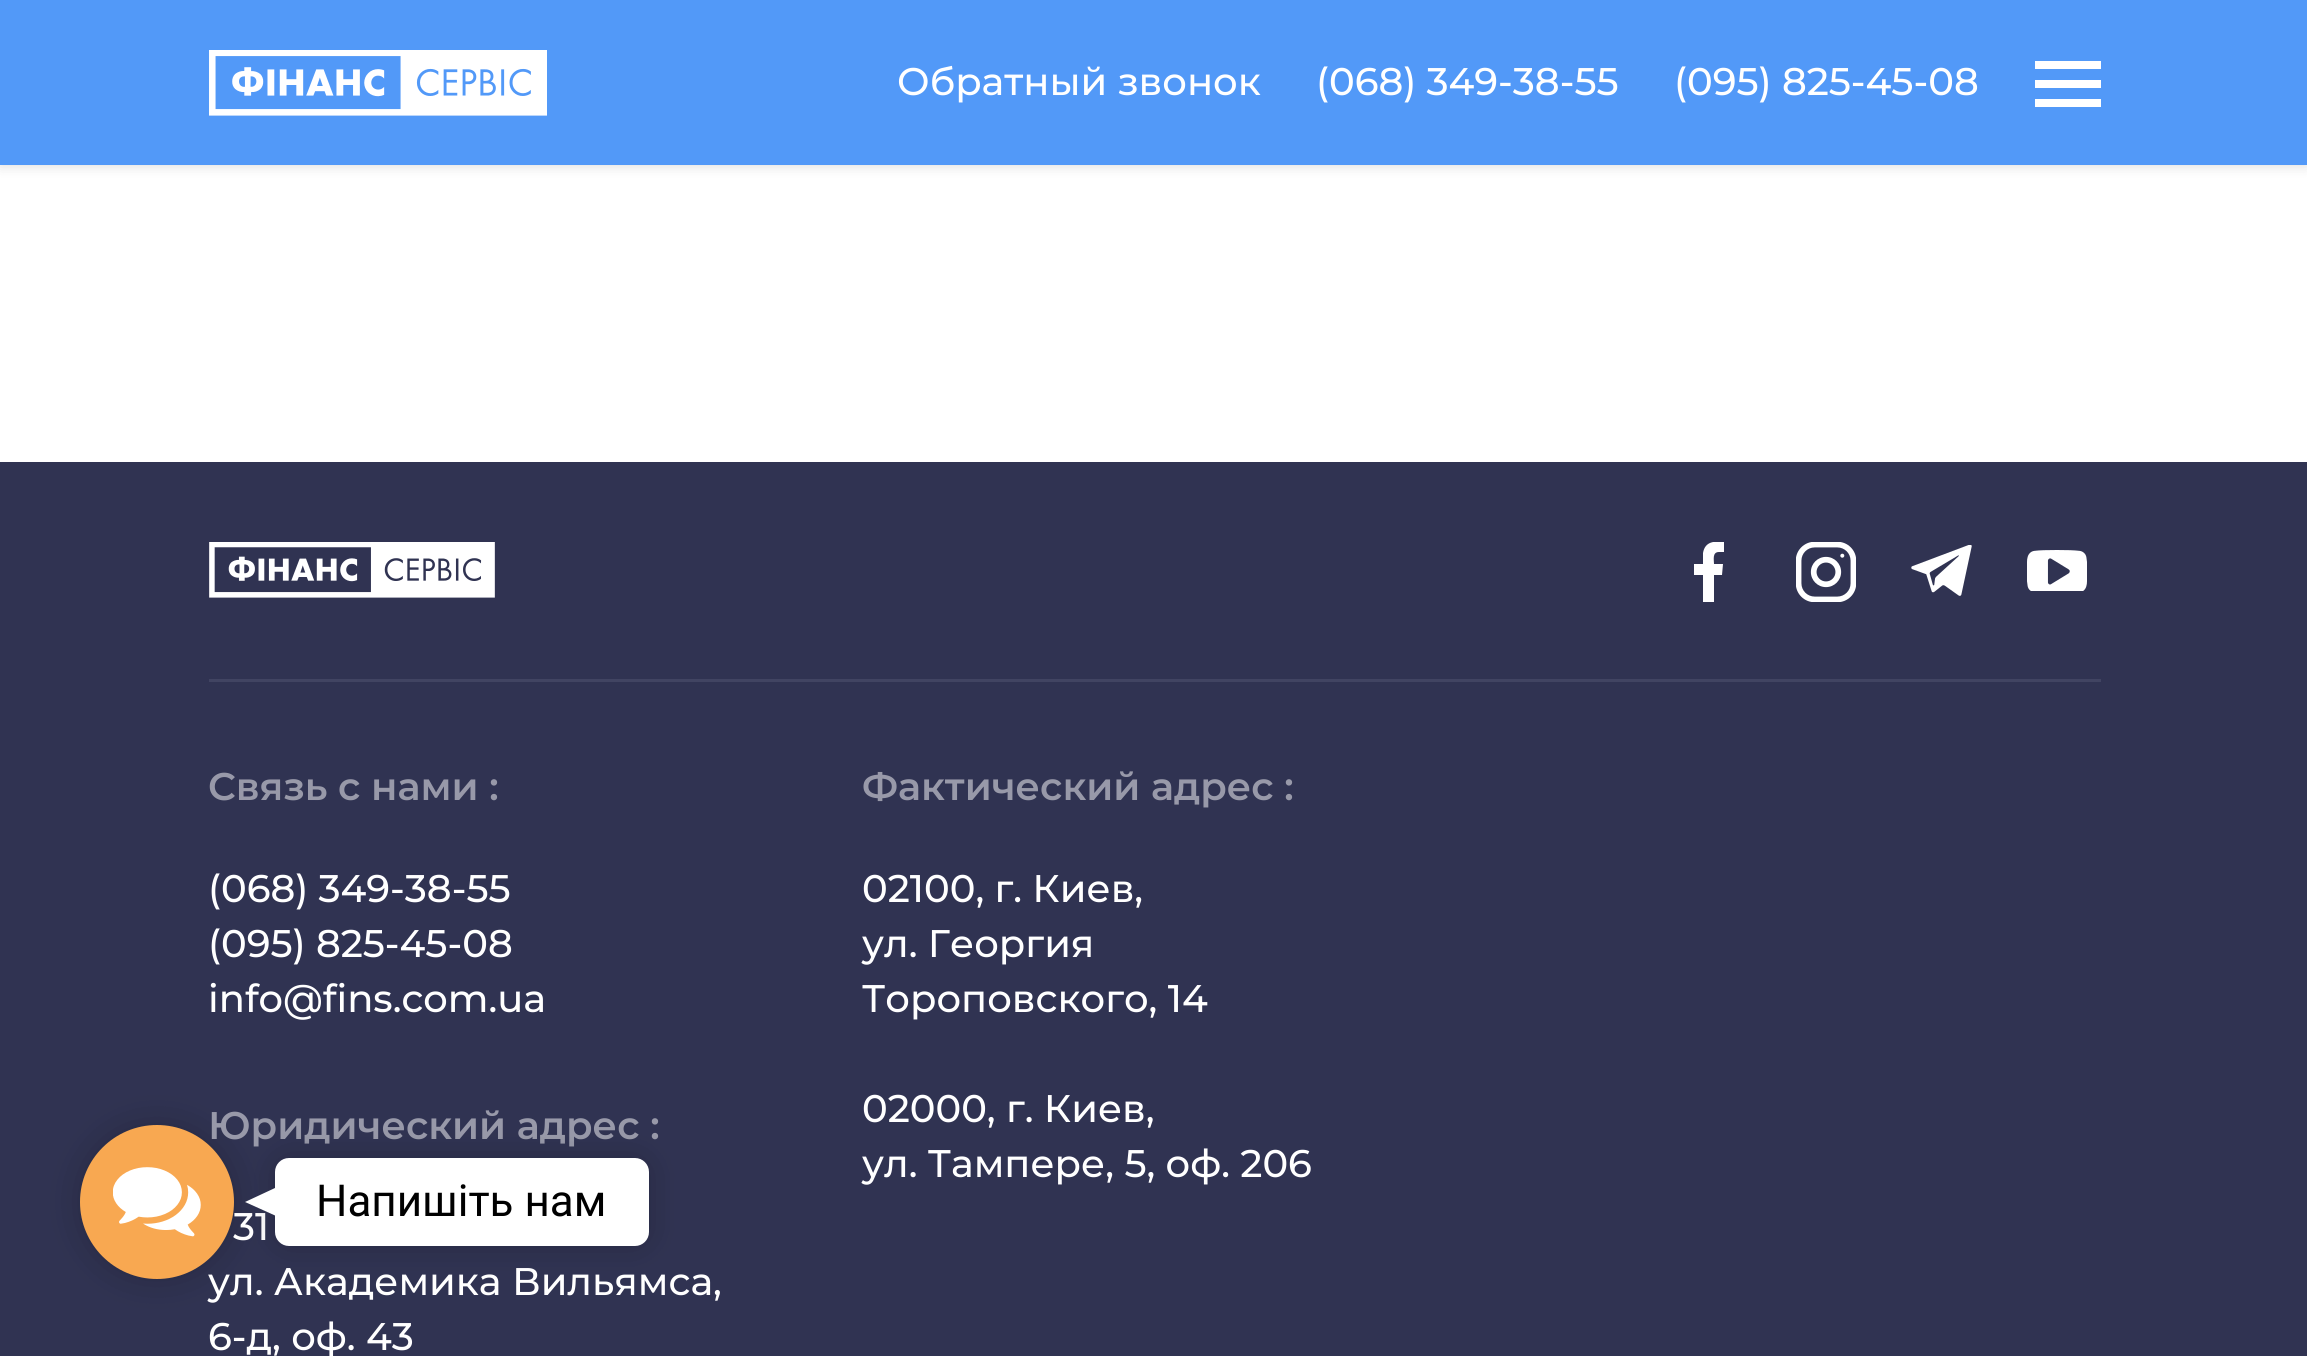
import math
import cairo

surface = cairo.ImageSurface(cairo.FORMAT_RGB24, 2307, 1356)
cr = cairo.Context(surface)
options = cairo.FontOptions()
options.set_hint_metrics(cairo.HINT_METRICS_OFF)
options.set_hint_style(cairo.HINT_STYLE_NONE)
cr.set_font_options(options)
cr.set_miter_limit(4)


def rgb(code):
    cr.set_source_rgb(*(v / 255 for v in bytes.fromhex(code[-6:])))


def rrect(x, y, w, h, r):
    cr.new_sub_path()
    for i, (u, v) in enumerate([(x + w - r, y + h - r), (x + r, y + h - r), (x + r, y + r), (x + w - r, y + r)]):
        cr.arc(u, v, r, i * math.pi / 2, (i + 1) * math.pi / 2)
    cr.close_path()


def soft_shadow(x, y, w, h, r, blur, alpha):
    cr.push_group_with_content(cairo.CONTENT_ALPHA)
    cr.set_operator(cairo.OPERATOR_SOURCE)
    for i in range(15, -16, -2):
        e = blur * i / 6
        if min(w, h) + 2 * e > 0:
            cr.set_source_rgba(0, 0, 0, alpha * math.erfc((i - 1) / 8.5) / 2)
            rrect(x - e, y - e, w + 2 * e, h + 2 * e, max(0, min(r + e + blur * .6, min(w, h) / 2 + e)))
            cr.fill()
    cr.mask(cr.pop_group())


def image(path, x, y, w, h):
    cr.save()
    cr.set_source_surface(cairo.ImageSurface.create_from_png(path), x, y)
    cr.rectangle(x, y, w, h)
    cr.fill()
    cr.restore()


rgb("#ffffff")
cr.paint()
rgb("#000000")
soft_shadow(0, 0, 2307, 165, 0, 7, 0.15)
rgb("#5299f8")
cr.rectangle(0, 0, 2307, 165)
cr.fill()
image("img/1.png", 209, 50, 338, 66)
for x, y, w, h, color in [
    (2035, 80, 66, 8, "#ffffff"),
    (2035, 61, 66, 8, "#ffffff"),
    (2035, 99, 66, 8, "#ffffff"),
    (0, 462, 2307, 894, "#303352"),
    (209, 679, 1892, 3, "#414462"),
]:
    rgb(color)
    cr.rectangle(x, y, w, h)
    cr.fill()
image("img/2.png", 209, 542, 286, 56)
cr.save()
cr.rectangle(1694, 542, 30, 60)
cr.clip()
rgb("#ffffff")
cr.new_path()
cr.move_to(1719, 552)
cr.line_to(1724, 552)
cr.line_to(1724, 542)
cr.curve_to(1715, 541, 1705, 541, 1703, 553)
cr.line_to(1703, 564)
cr.line_to(1694, 564)
cr.line_to(1694, 575)
cr.line_to(1703, 575)
cr.line_to(1703, 602)
cr.line_to(1714, 602)
cr.line_to(1714, 575)
cr.line_to(1722, 575)
cr.line_to(1723, 564)
cr.line_to(1714, 564)
cr.curve_to(1714, 560, 1712, 552, 1719, 552)
cr.close_path()
cr.fill()
cr.restore()
image("img/3.png", 1796, 542, 60, 60)
image("img/4.png", 1911, 545, 61, 51)
image("img/5.png", 2027, 550, 60, 41)
rgb("#000000")
soft_shadow(80, 1125, 154, 154, 77, 16.5, 0.2)
cr.select_font_face("Montserrat Medium")
cr.set_font_size(38.5)
rgb("#ffffff")
for x, y, s in [
    (897, 95, "Обратный звонок"),
    (1316, 95, "(068) 349-38-55"),
    (1674, 95, "(095) 825-45-08"),
]:
    cr.move_to(x, y)
    cr.show_text(s)
cr.select_font_face("Montserrat SemiBold")
rgb("#9899a9")
cr.move_to(862, 800)
cr.show_text("Фактический адрес :")
cr.select_font_face("Montserrat Medium")
rgb("#ffffff")
for x, y, s in [
    (862, 902, "02100, г. Киев,"),
    (862, 957, "ул. Георгия"),
    (862, 1012, "Тороповского, 14"),
    (862, 1122, "02000, г. Киев,"),
    (862, 1177, "ул. Тампере, 5, оф. 206"),
]:
    cr.move_to(x, y)
    cr.show_text(s)
cr.select_font_face("Montserrat SemiBold")
rgb("#9899a9")
cr.move_to(208, 1139)
cr.show_text("Юридический адрес :")
cr.select_font_face("Montserrat Medium")
rgb("#ffffff")
for x, y, s in [
    (233, 1240, "31"),
    (208, 1295, "ул. Академика Вильямса,"),
    (208, 1350, "6-д, оф. 43"),
]:
    cr.move_to(x, y)
    cr.show_text(s)
cr.select_font_face("Montserrat SemiBold")
rgb("#9899a9")
cr.move_to(208, 800)
cr.show_text("Связь с нами :")
cr.select_font_face("Montserrat Medium")
rgb("#ffffff")
for x, y, s in [
    (208, 902, "(068) 349-38-55"),
    (208, 957, "(095) 825-45-08"),
    (208, 1012, "info@fins.com.ua"),
]:
    cr.move_to(x, y)
    cr.show_text(s)
rgb("#f8a851")
cr.new_path()
cr.arc(157, 1202, 77, 0, 2 * math.pi)
cr.fill()
image("img/6.png", 113, 1167, 88, 70)
rgb("#000000")
soft_shadow(275, 1158, 374, 88, 14, 14, 0.2)
rgb("#ffffff")
rrect(275, 1158, 374, 88, 14)
cr.fill()
cr.new_path()
cr.move_to(275, 1188)
cr.line_to(275, 1215.5)
cr.line_to(245, 1202)
cr.close_path()
cr.fill()
cr.select_font_face("Roboto")
cr.set_font_size(44)
rgb("#000000")
cr.move_to(316, 1216)
cr.show_text("Напишіть нам")
surface.write_to_png("page.png")
